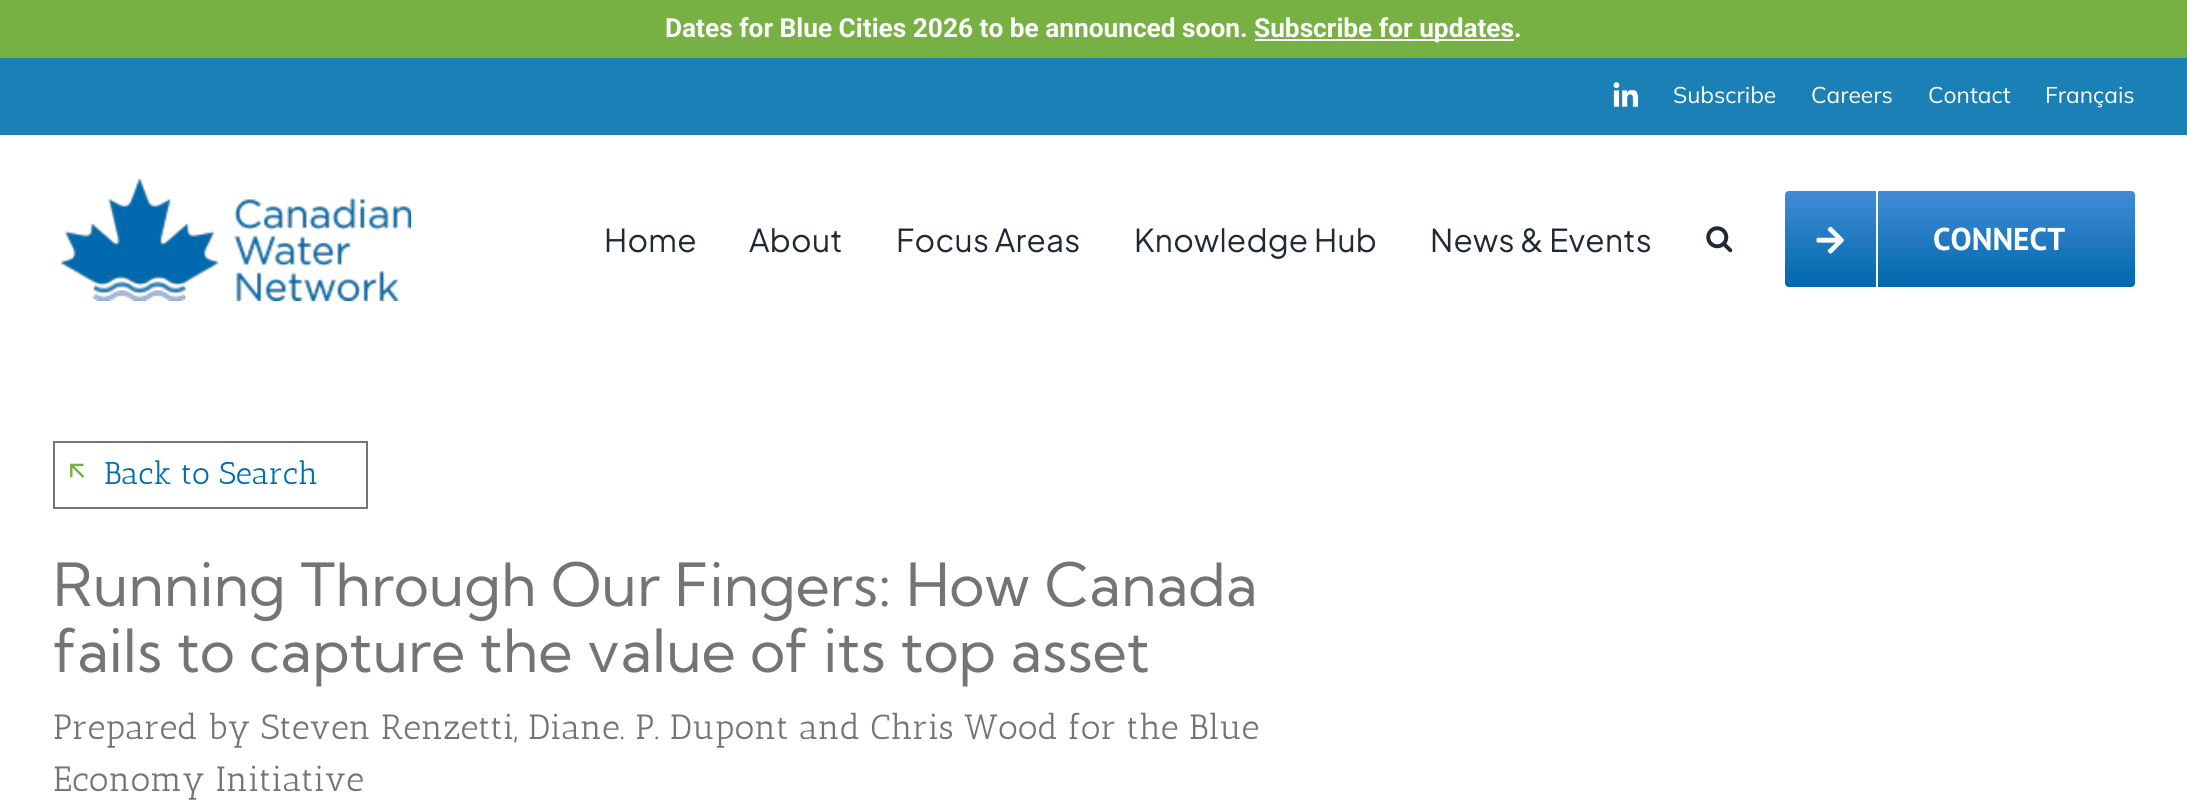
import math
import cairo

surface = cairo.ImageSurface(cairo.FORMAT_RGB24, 2187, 807)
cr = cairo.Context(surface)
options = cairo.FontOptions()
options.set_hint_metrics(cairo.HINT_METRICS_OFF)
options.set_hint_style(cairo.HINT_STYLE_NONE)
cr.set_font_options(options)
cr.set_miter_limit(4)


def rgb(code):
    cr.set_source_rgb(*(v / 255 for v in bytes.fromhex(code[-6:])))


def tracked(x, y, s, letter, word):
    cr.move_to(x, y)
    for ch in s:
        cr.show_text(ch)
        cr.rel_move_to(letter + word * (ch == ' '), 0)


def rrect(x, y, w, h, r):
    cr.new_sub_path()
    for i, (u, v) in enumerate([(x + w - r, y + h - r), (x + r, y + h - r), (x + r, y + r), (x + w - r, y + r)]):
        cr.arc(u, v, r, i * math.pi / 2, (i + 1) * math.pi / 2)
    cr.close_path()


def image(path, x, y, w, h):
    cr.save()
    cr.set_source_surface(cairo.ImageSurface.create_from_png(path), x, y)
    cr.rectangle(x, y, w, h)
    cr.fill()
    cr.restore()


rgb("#ffffff")
cr.paint()
for x, y, w, h, color in [
    (0, 0, 2187, 58, "#77b043"),
    (1255, 39, 259, 2, "#ffffff"),
    (0, 58, 2187, 77, "#1a80b6"),
]:
    rgb(color)
    cr.rectangle(x, y, w, h)
    cr.fill()
image("img/1.png", 1613, 82, 25, 25)
image("img/2.png", 61, 178, 351, 123)
image("img/3.png", 1706, 226, 27, 27)
gradient = cairo.LinearGradient(1960, 191, 1960, 287)
gradient.add_color_stop_rgba(0, 0.259, 0.549, 0.839, 1)
gradient.add_color_stop_rgba(1, 0, 0.408, 0.675, 1)
cr.set_source(gradient)
rrect(1785, 191, 350, 96, 4)
cr.fill()
rgb("#ffffff")
cr.rectangle(1876, 191, 2, 96)
cr.fill()
image("img/4.png", 1816, 226, 28, 28)
cr.rectangle(54, 442, 313, 66)
rgb("#747474")
cr.stroke()
image("img/5.png", 70, 463, 15, 15)
cr.select_font_face("Roboto", cairo.FONT_SLANT_NORMAL, cairo.FONT_WEIGHT_BOLD)
cr.set_font_size(26.25)
rgb("#ffffff")
cr.move_to(665, 37)
cr.show_text("Dates for Blue Cities 2026 to be announced soon.")
cr.move_to(1254, 37)
cr.show_text("Subscribe for updates.")
cr.select_font_face("Mulish")
cr.set_font_size(22.75)
for x, y, s in [
    (1673, 103, "Subscribe"),
    (1811, 103, "Careers"),
    (1928, 103, "Contact"),
    (2045, 103, "Français"),
]:
    cr.move_to(x, y)
    cr.show_text(s)
cr.select_font_face("Plus Jakarta Sans")
cr.set_font_size(31.5)
rgb("#212934")
for x, y, s in [
    (604, 252, "Home"),
    (749, 252, "About"),
    (896, 252, "Focus Areas"),
    (1134, 252, "Knowledge Hub"),
    (1430, 252, "News & Events"),
]:
    tracked(x, y, s, 0.25, 0)
cr.select_font_face("PT Sans", cairo.FONT_SLANT_NORMAL, cairo.FONT_WEIGHT_BOLD)
rgb("#ffffff")
cr.move_to(1933, 250)
cr.show_text("CONNECT")
cr.select_font_face("Antic Slab")
rgb("#006bae")
cr.move_to(104, 484)
cr.show_text("Back to Search")
cr.select_font_face("Kumbh Sans")
cr.set_font_size(59.5)
rgb("#747474")
cr.move_to(53, 606)
cr.show_text("Running Through Our Fingers: How Canada")
cr.move_to(53, 672)
cr.show_text("fails to capture the value of its top asset")
cr.select_font_face("Antic Slab")
cr.set_font_size(35)
cr.move_to(53, 739)
cr.show_text("Prepared by Steven Renzetti, Diane. P. Dupont and Chris Wood for the Blue")
cr.move_to(53, 791)
cr.show_text("Economy Initiative")
surface.write_to_png("page.png")
